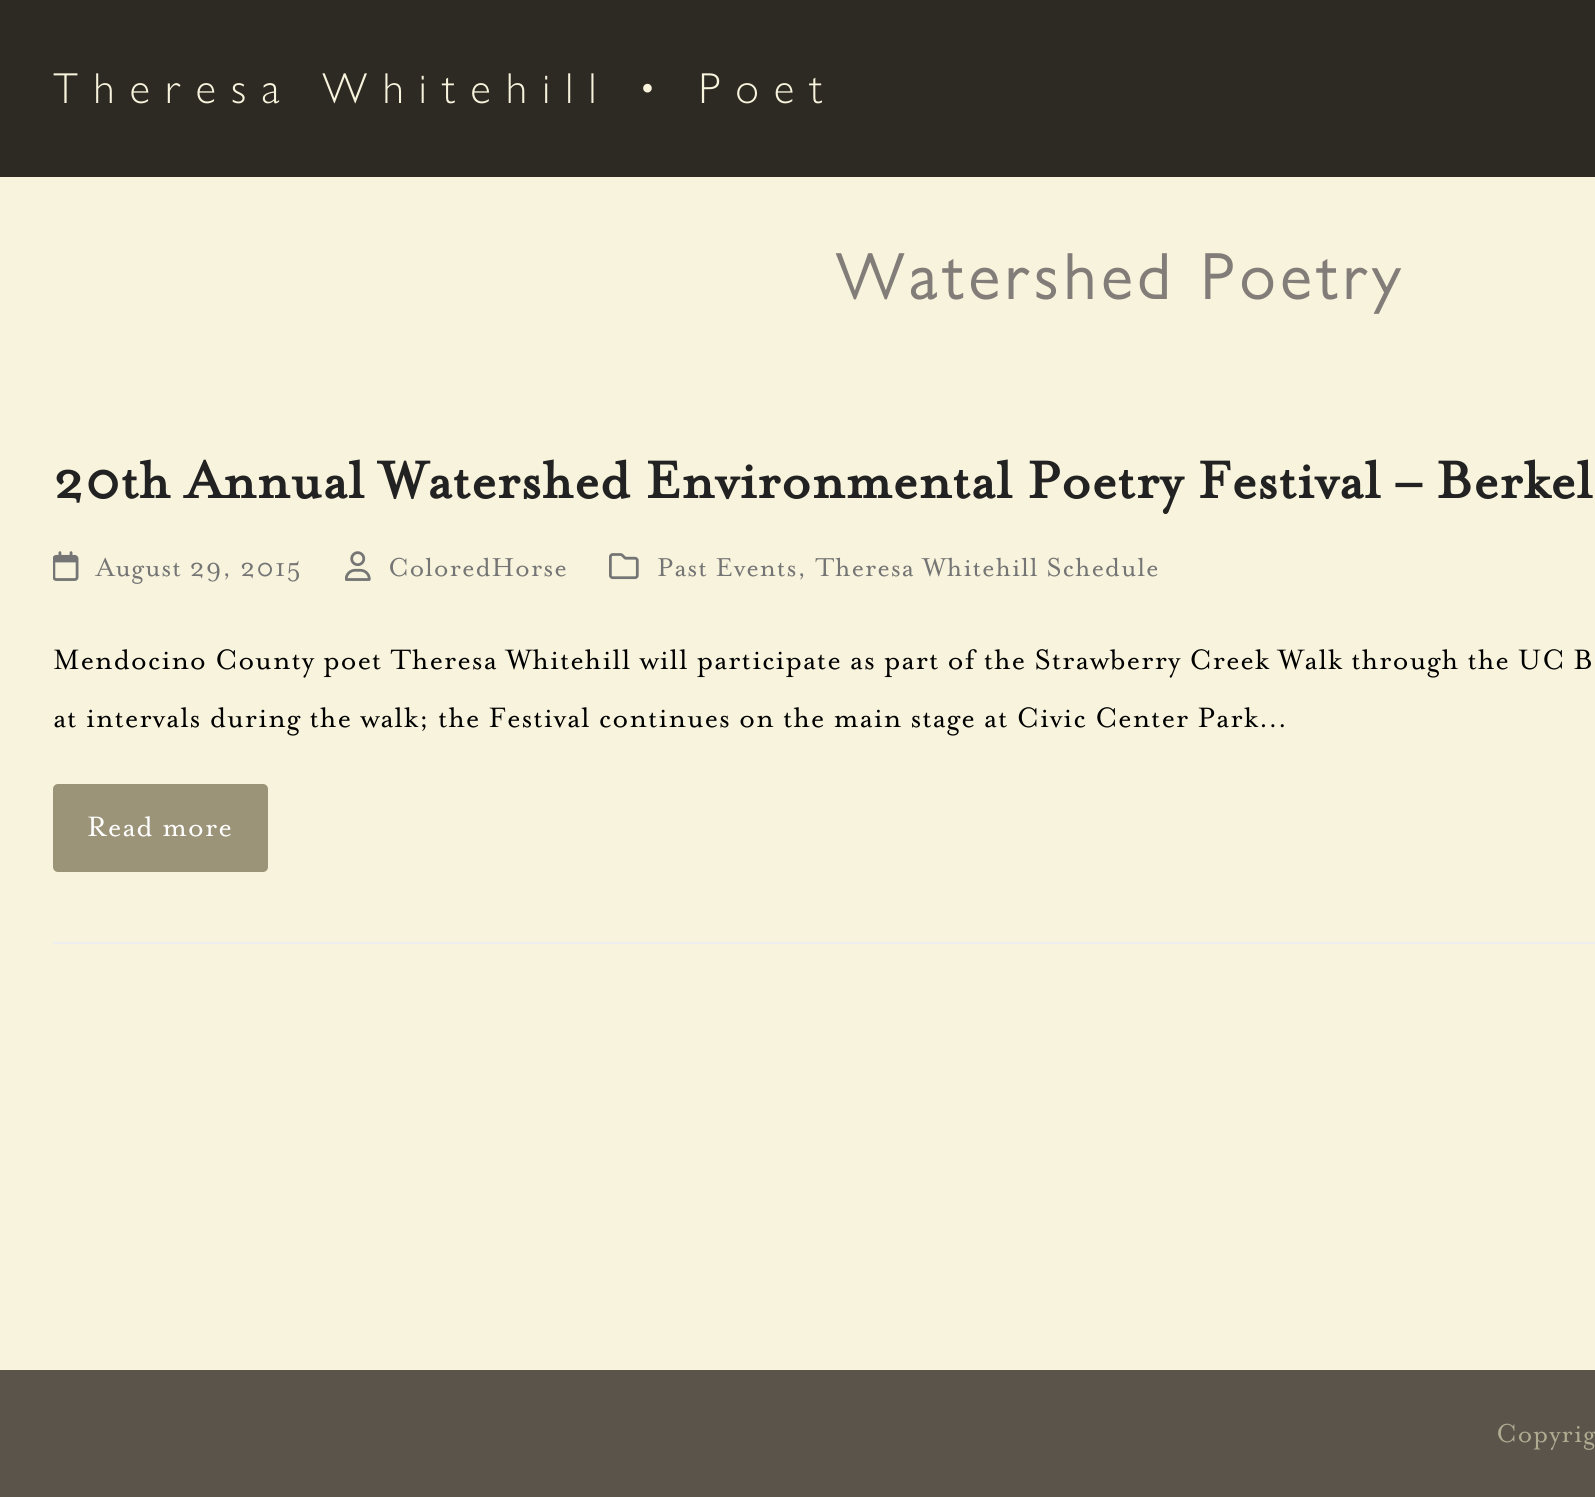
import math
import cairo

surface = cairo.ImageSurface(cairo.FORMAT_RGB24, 1595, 1497)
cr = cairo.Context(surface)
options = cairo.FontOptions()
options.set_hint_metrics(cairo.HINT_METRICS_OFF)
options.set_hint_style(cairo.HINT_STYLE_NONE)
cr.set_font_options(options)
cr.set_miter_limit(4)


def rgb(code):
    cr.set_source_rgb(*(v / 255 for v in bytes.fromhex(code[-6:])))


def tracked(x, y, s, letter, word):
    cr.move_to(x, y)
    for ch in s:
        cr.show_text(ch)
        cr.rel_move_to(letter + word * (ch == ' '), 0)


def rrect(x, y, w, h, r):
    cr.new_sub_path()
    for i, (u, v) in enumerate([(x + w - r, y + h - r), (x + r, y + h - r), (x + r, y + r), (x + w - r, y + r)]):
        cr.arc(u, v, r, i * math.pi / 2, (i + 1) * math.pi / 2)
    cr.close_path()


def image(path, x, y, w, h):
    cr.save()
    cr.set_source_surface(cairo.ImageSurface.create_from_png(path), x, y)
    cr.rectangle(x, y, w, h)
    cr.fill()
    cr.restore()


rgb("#f7f3dc")
cr.paint()
rgb("#2d2a23")
cr.rectangle(0, 0, 1595, 177)
cr.fill()
image("img/1.png", 53, 551, 26, 30)
image("img/2.png", 345, 551, 26, 30)
image("img/3.png", 609, 553, 30, 27)
rgb("#9b9479")
rrect(53, 784, 215, 88, 5)
cr.fill()
rgb("#eeeeee")
cr.rectangle(53, 942, 1542, 2)
cr.fill()
rgb("#5a544b")
cr.rectangle(0, 1370, 1595, 127)
cr.fill()
cr.select_font_face("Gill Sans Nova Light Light")
cr.set_font_size(43.5)
rgb("#f7f3dc")
tracked(53, 103, "Theresa Whitehill • Poet", 15.25, 0)
cr.select_font_face("Gill Sans Nova Light", cairo.FONT_SLANT_NORMAL, cairo.FONT_WEIGHT_BOLD)
cr.set_font_size(64.5)
rgb("#827d78")
tracked(836, 299, "Watershed Poetry", 6.5, 0)
cr.select_font_face("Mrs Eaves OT", cairo.FONT_SLANT_NORMAL, cairo.FONT_WEIGHT_BOLD)
cr.set_font_size(59.45)
rgb("#222222")
tracked(53, 498, "20th Annual Watershed Environmental Poetry Festival – Berkel", 0.81, 0)
cr.select_font_face("Mrs Eaves OT")
cr.set_font_size(29.75)
rgb("#757575")
for x, y, s in [
    (96, 576, "August 29, 2015"),
    (388, 576, "ColoredHorse"),
    (657, 576, "Past Events, Theresa Whitehill Schedule"),
]:
    tracked(x, y, s, 0.81, 0)
cr.set_font_size(32.2)
rgb("#000000")
tracked(53, 669, "Mendocino County poet Theresa Whitehill will participate as part of the Strawberry Creek Walk through the UC B", 0.81, 0)
tracked(53, 727, "at intervals during the walk; the Festival continues on the main stage at Civic Center Park…", 0.81, 0)
rgb("#ffffff")
tracked(87, 836, "Read more", 0.81, 0)
cr.set_font_size(29.75)
rgb("#afaa90")
tracked(1496, 1442, "Copyrig", 0.81, 0)
surface.write_to_png("page.png")
